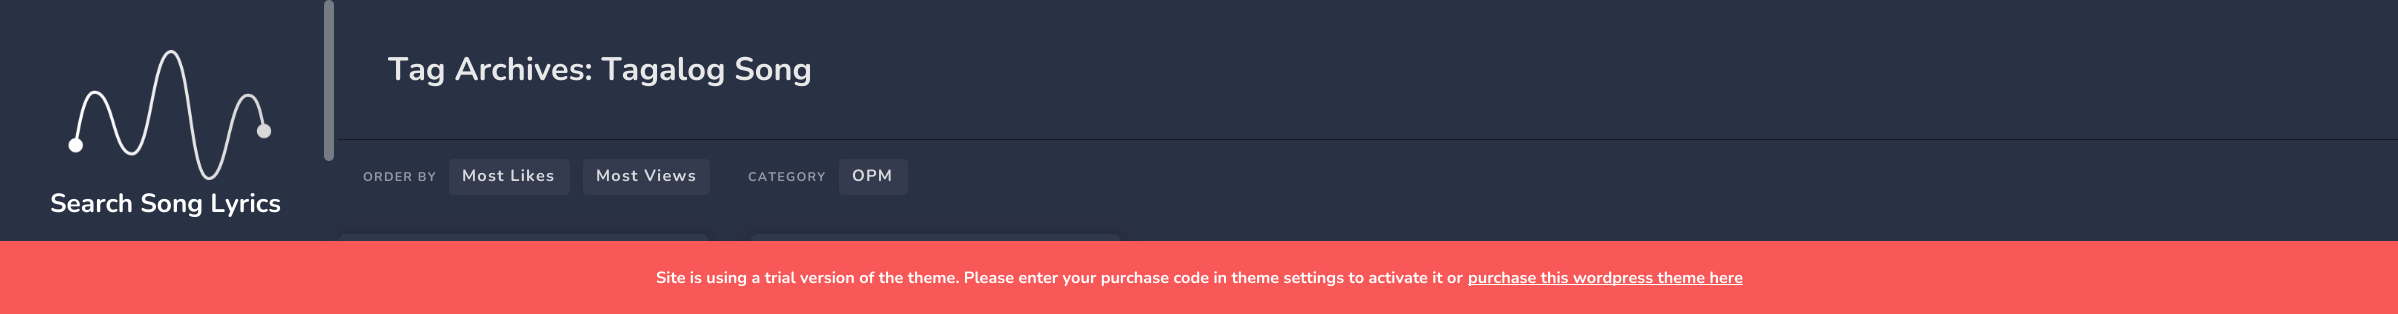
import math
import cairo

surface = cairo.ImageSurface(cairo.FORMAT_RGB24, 2398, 314)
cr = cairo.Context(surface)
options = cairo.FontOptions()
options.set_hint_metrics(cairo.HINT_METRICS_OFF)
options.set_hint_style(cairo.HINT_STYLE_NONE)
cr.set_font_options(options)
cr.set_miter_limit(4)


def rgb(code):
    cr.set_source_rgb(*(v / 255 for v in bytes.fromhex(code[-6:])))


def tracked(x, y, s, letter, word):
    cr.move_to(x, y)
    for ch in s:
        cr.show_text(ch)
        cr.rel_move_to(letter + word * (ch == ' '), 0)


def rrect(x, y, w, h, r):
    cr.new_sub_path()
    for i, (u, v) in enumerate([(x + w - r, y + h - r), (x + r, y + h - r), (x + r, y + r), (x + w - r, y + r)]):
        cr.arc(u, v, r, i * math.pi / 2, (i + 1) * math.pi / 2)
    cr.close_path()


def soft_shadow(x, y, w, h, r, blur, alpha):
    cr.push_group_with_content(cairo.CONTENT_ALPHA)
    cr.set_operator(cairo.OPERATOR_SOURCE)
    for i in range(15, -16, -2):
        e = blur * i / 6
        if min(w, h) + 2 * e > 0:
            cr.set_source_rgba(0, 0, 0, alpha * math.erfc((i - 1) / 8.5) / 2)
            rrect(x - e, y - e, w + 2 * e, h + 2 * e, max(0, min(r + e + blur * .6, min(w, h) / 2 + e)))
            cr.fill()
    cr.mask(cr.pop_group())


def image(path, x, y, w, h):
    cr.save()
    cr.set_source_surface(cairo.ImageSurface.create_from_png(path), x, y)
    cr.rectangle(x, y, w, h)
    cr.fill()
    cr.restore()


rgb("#293145")
cr.paint()
rgb("#161a25")
cr.rectangle(338, 139, 2060, 1)
cr.fill()
rgb("#343b4e")
rrect(449, 159, 121, 36, 5)
cr.fill()
rrect(583, 159, 127, 36, 5)
cr.fill()
rrect(839, 159, 69, 36, 5)
cr.fill()
rgb("#0e0f17")
soft_shadow(334, 234, 379, 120, 11, 9.5, 0.3)
rgb("#30384d")
rrect(338, 234, 371, 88, 8)
cr.fill()
rgb("#0e0f17")
soft_shadow(746, 234, 379, 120, 11, 9.5, 0.3)
rgb("#30384d")
rrect(750, 234, 371, 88, 8)
cr.fill()
rgb("#293145")
cr.rectangle(329, 230, 9, 11)
cr.fill()
rgb("#767a82")
rrect(324, 0, 10, 161, 5)
cr.fill()
image("img/1.png", 68, 50, 204, 130)
rgb("#f95858")
cr.rectangle(0, 241, 2398, 73)
cr.fill()
rgb("#ffffff")
cr.rectangle(1468, 284, 275, 1)
cr.fill()
cr.select_font_face("Nunito", cairo.FONT_SLANT_NORMAL, cairo.FONT_WEIGHT_BOLD)
cr.set_font_size(32.5)
rgb("#e8e8e8")
cr.move_to(388, 80)
cr.show_text("Tag Archives: Tagalog Song")
cr.set_font_size(12.5)
rgb("#9498a2")
tracked(363, 181, "ORDER BY", 1.25, 0)
cr.set_font_size(16.25)
rgb("#d6d8dc")
tracked(462, 181, "Most Likes", 1.25, 0)
tracked(596, 181, "Most Views", 1.25, 0)
cr.set_font_size(12.5)
rgb("#9498a2")
tracked(748, 181, "CATEGORY", 1.25, 0)
cr.set_font_size(16.25)
rgb("#d6d8dc")
tracked(852, 181, "OPM", 1.25, 0)
cr.set_font_size(26.25)
rgb("#ffffff")
cr.move_to(50, 212)
cr.show_text("Search Song Lyrics")
cr.set_font_size(16.25)
cr.move_to(656, 283)
cr.show_text("Site is using a trial version of the theme. Please enter your purchase code in theme settings to activate it or")
cr.move_to(1468, 283)
cr.show_text("purchase this wordpress theme here")
surface.write_to_png("page.png")
